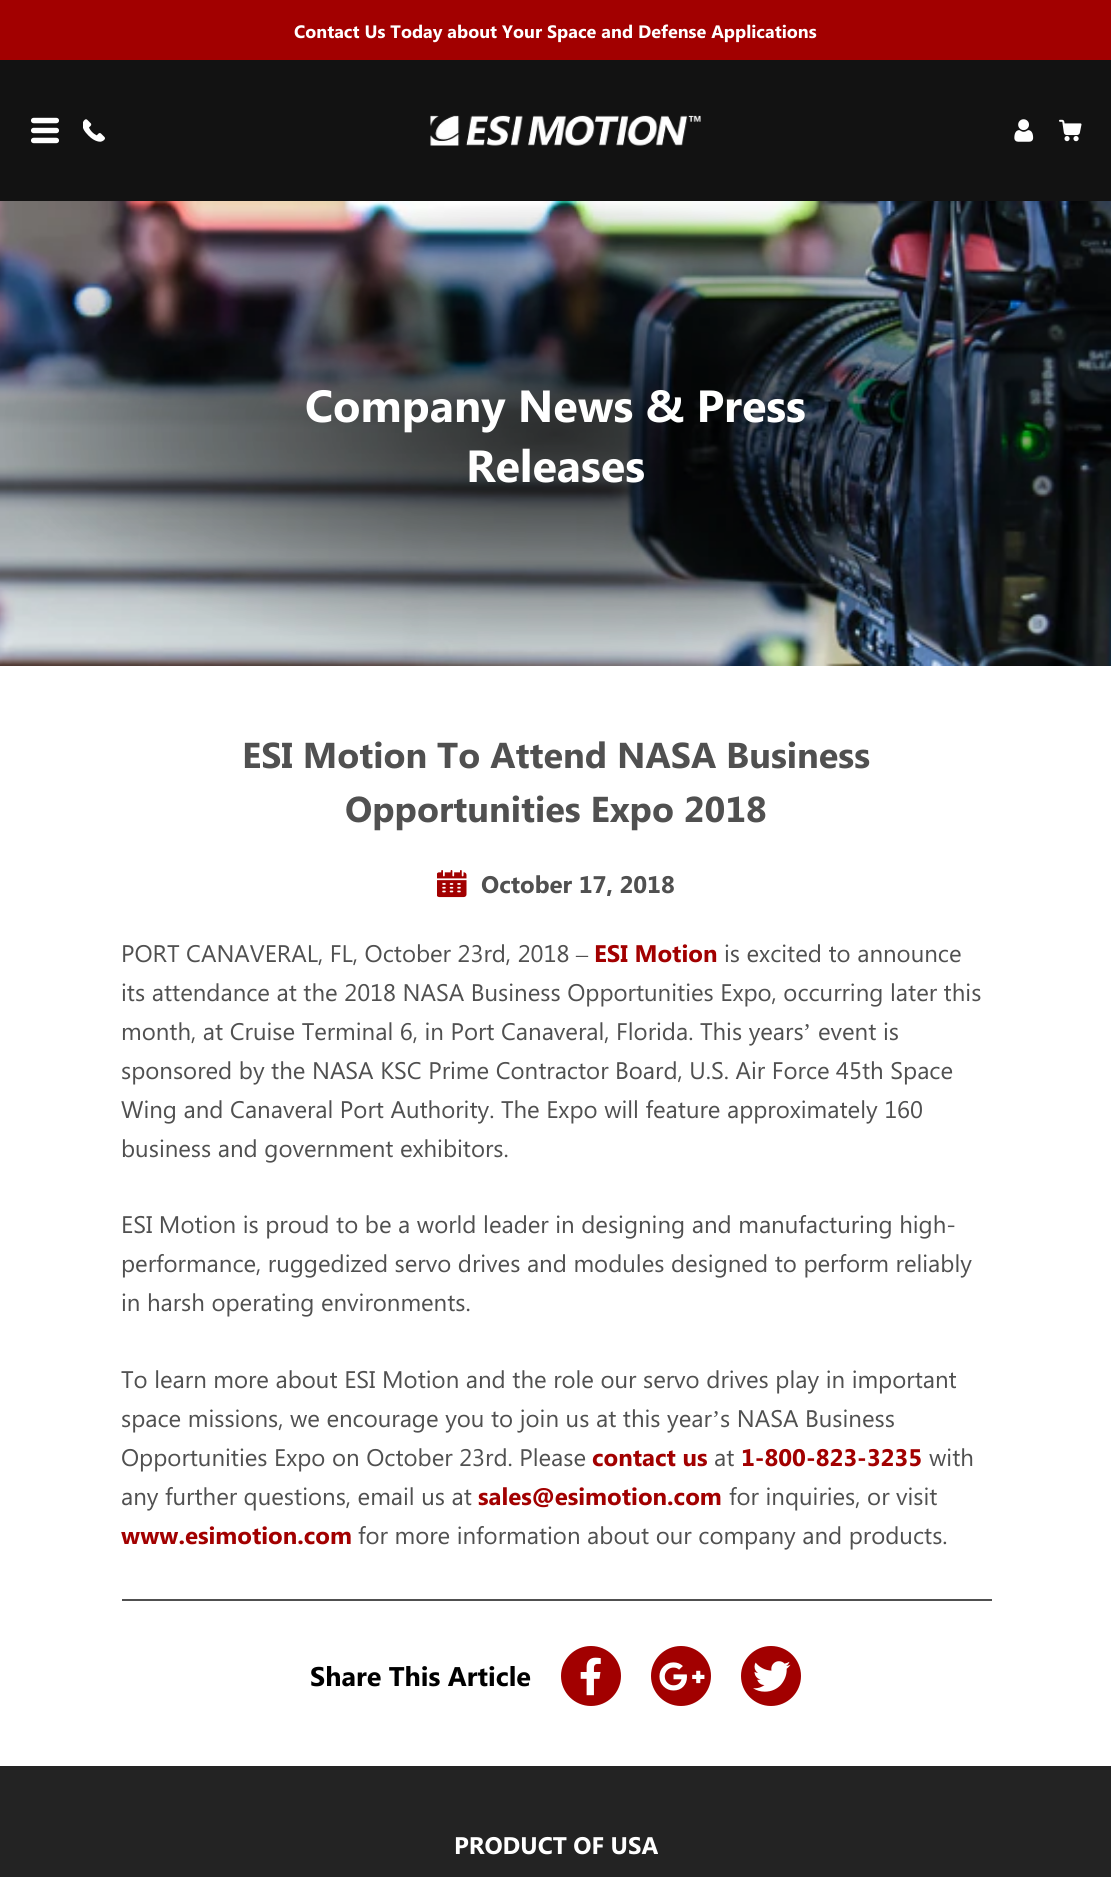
import math
import cairo

surface = cairo.ImageSurface(cairo.FORMAT_RGB24, 1111, 1877)
cr = cairo.Context(surface)
options = cairo.FontOptions()
options.set_hint_metrics(cairo.HINT_METRICS_OFF)
options.set_hint_style(cairo.HINT_STYLE_NONE)
cr.set_font_options(options)
cr.set_miter_limit(4)


def rgb(code):
    cr.set_source_rgb(*(v / 255 for v in bytes.fromhex(code[-6:])))


def image(path, x, y, w, h):
    cr.save()
    cr.set_source_surface(cairo.ImageSurface.create_from_png(path), x, y)
    cr.rectangle(x, y, w, h)
    cr.fill()
    cr.restore()


rgb("#ffffff")
cr.paint()
rgb("#a20000")
cr.rectangle(0, 0, 1111, 60)
cr.fill()
rgb("#121212")
cr.rectangle(0, 60, 1111, 141)
cr.fill()
image("img/1.png", 31, 117, 28, 27)
image("img/2.png", 83, 119, 22, 23)
image("img/3.png", 430, 115, 271, 31)
image("img/4.png", 1014, 119, 20, 23)
image("img/5.png", 1059, 119, 23, 23)
image("img/6.png", 0, 201, 1111, 465)
image("img/7.png", 437, 870, 30, 28)
rgb("#505050")
cr.rectangle(122, 1599, 870, 2)
cr.fill()
rgb("#a20000")
cr.arc(591, 1676, 29, 0, 2 * math.pi)
cr.fill_preserve()
cr.stroke()
image("img/8.png", 580, 1657, 21, 39)
cr.arc(681, 1676, 29, 0, 2 * math.pi)
cr.fill_preserve()
cr.stroke()
image("img/9.png", 659, 1662, 46, 29)
cr.arc(771, 1676, 29, 0, 2 * math.pi)
cr.fill_preserve()
cr.stroke()
image("img/10.png", 753, 1661, 38, 31)
rgb("#232323")
cr.rectangle(0, 1766, 1111, 111)
cr.fill()
cr.select_font_face("Segoe UI", cairo.FONT_SLANT_NORMAL, cairo.FONT_WEIGHT_BOLD)
cr.set_font_size(18)
rgb("#ffffff")
cr.move_to(294, 38)
cr.show_text("Contact Us Today about Your Space and Defense Applications")
cr.set_font_size(45)
cr.move_to(305, 422)
cr.show_text("Company News & Press")
cr.move_to(466, 482)
cr.show_text("Releases")
cr.set_font_size(36)
rgb("#505050")
cr.move_to(242, 768)
cr.show_text("ESI Motion To Attend NASA Business")
cr.move_to(345, 822)
cr.show_text("Opportunities Expo 2018")
cr.set_font_size(24)
cr.move_to(481, 893)
cr.show_text("October 17, 2018")
cr.select_font_face("Segoe UI")
cr.move_to(121, 962)
cr.show_text("PORT CANAVERAL, FL, October 23rd, 2018")
cr.select_font_face("Liberation Serif")
cr.move_to(576, 962)
cr.show_text("–")
cr.select_font_face("Segoe UI", cairo.FONT_SLANT_NORMAL, cairo.FONT_WEIGHT_BOLD)
rgb("#a20000")
cr.move_to(594, 962)
cr.show_text("ESI Motion")
cr.select_font_face("Segoe UI")
rgb("#505050")
for x, y, s in [
    (724, 962, "is excited to announce"),
    (121, 1001, "its attendance at the 2018 NASA Business Opportunities Expo, occurring later this"),
    (121, 1040, "month, at Cruise Terminal 6, in Port Canaveral, Florida. This years"),
]:
    cr.move_to(x, y)
    cr.show_text(s)
cr.select_font_face("Liberation Serif")
cr.move_to(803, 1040)
cr.show_text("’")
cr.select_font_face("Segoe UI")
for x, y, s in [
    (818, 1040, "event is"),
    (121, 1079, "sponsored by the NASA KSC Prime Contractor Board, U.S. Air Force 45th Space"),
    (121, 1118, "Wing and Canaveral Port Authority. The Expo will feature approximately 160"),
    (121, 1157, "business and government exhibitors."),
    (121, 1233, "ESI Motion is proud to be a world leader in designing and manufacturing high-"),
    (121, 1272, "performance, ruggedized servo drives and modules designed to perform reliably"),
    (121, 1311, "in harsh operating environments."),
    (121, 1388, "To learn more about ESI Motion and the role our servo drives play in important"),
    (121, 1427, "space missions, we encourage you to join us at this year"),
]:
    cr.move_to(x, y)
    cr.show_text(s)
cr.select_font_face("Liberation Serif")
cr.move_to(712, 1427)
cr.show_text("’")
cr.select_font_face("Segoe UI")
cr.move_to(720, 1427)
cr.show_text("s NASA Business")
cr.move_to(121, 1466)
cr.show_text("Opportunities Expo on October 23rd. Please")
cr.select_font_face("Segoe UI", cairo.FONT_SLANT_NORMAL, cairo.FONT_WEIGHT_BOLD)
rgb("#a20000")
cr.move_to(592, 1466)
cr.show_text("contact us")
cr.select_font_face("Segoe UI")
rgb("#505050")
cr.move_to(714, 1466)
cr.show_text("at")
cr.select_font_face("Segoe UI", cairo.FONT_SLANT_NORMAL, cairo.FONT_WEIGHT_BOLD)
rgb("#a20000")
cr.move_to(741, 1466)
cr.show_text("1-800-823-3235")
cr.select_font_face("Segoe UI")
rgb("#505050")
cr.move_to(929, 1466)
cr.show_text("with")
cr.move_to(121, 1505)
cr.show_text("any further questions, email us at")
cr.select_font_face("Segoe UI", cairo.FONT_SLANT_NORMAL, cairo.FONT_WEIGHT_BOLD)
rgb("#a20000")
cr.move_to(478, 1505)
cr.show_text("sales@esimotion.com")
cr.select_font_face("Segoe UI")
rgb("#505050")
cr.move_to(729, 1505)
cr.show_text("for inquiries, or visit")
cr.select_font_face("Segoe UI", cairo.FONT_SLANT_NORMAL, cairo.FONT_WEIGHT_BOLD)
rgb("#a20000")
cr.move_to(121, 1544)
cr.show_text("www.esimotion.com")
cr.select_font_face("Segoe UI")
rgb("#505050")
cr.move_to(358, 1544)
cr.show_text("for more information about our company and products.")
cr.select_font_face("Segoe UI", cairo.FONT_SLANT_NORMAL, cairo.FONT_WEIGHT_BOLD)
cr.set_font_size(27)
rgb("#000000")
cr.move_to(310, 1686)
cr.show_text("Share This Article")
cr.set_font_size(24)
rgb("#ffffff")
cr.move_to(454, 1854)
cr.show_text("PRODUCT OF USA")
surface.write_to_png("page.png")
